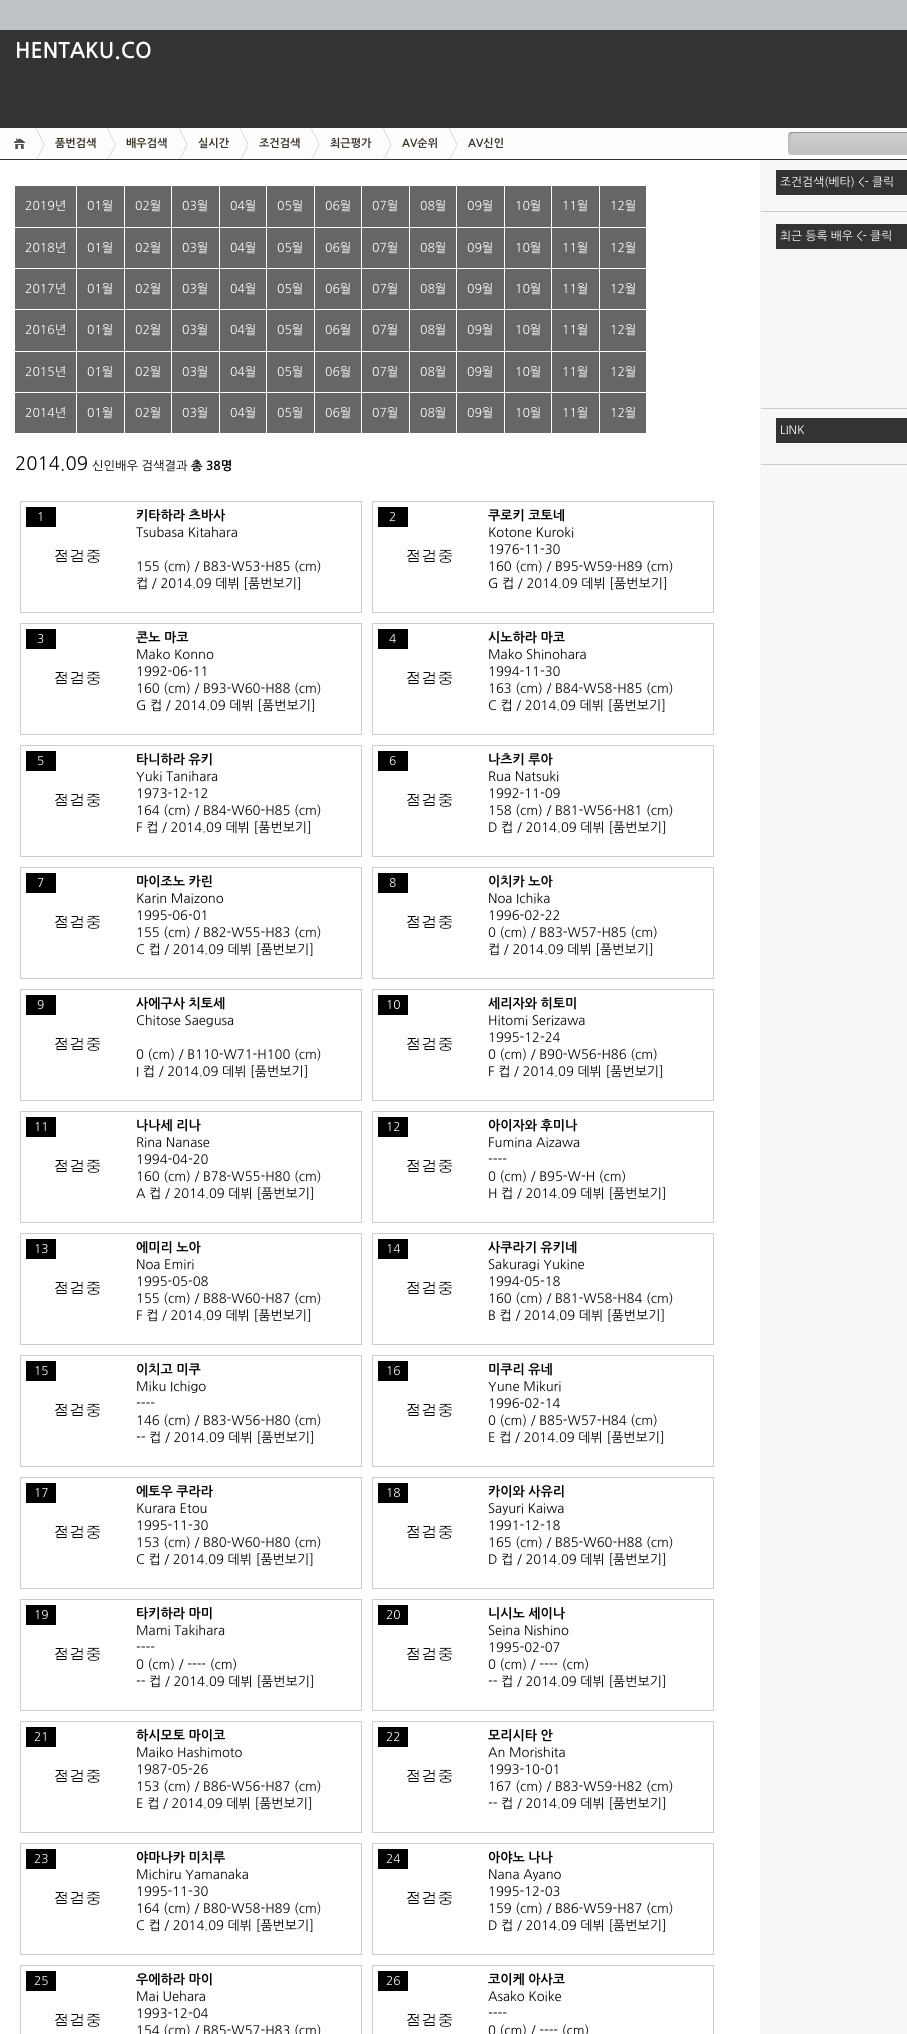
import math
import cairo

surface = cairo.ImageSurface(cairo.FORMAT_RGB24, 907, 2034)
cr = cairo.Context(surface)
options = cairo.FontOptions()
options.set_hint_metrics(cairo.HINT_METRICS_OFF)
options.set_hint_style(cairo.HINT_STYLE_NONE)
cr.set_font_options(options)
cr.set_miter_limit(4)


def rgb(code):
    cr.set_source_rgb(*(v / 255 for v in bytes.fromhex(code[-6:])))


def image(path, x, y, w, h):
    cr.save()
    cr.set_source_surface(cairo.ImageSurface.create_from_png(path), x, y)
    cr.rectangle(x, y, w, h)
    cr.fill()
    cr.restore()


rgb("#bec3c6")
cr.paint()
rgb("#333333")
cr.rectangle(0, 30, 907, 130)
cr.fill()
rgb("#fdfdfd")
cr.rectangle(0, 128, 907, 31)
cr.fill()
image("img/1.png", 14, 138, 11, 11)
image("img/2.png", 36, 128, 9, 31)
image("img/3.png", 107, 128, 9, 31)
image("img/2.png", 179, 128, 9, 31)
image("img/2.png", 240, 128, 9, 31)
image("img/3.png", 311, 128, 9, 31)
image("img/2.png", 383, 128, 9, 31)
image("img/2.png", 449, 128, 9, 31)
image("img/4.png", 788, 132, 119, 23)
for x, y, w, h, color in [
    (0, 160, 760, 1874, "#ffffff"),
    (760, 160, 147, 1874, "#f7f7f7"),
    (15, 186, 61, 41, "#666666"),
    (77, 186, 47, 41, "#666666"),
    (125, 186, 46, 41, "#666666"),
    (172, 186, 47, 41, "#666666"),
    (220, 186, 46, 41, "#666666"),
    (267, 186, 47, 41, "#666666"),
    (315, 186, 46, 41, "#666666"),
    (362, 186, 47, 41, "#666666"),
    (410, 186, 46, 41, "#666666"),
    (457, 186, 47, 41, "#666666"),
    (505, 186, 46, 41, "#666666"),
    (552, 186, 47, 41, "#666666"),
    (600, 186, 46, 41, "#666666"),
    (15, 228, 61, 40, "#666666"),
    (77, 228, 47, 40, "#666666"),
    (125, 228, 46, 40, "#666666"),
    (172, 228, 47, 40, "#666666"),
    (220, 228, 46, 40, "#666666"),
    (267, 228, 47, 40, "#666666"),
    (315, 228, 46, 40, "#666666"),
    (362, 228, 47, 40, "#666666"),
    (410, 228, 46, 40, "#666666"),
    (457, 228, 47, 40, "#666666"),
    (505, 228, 46, 40, "#666666"),
    (552, 228, 47, 40, "#666666"),
    (600, 228, 46, 40, "#666666"),
    (15, 269, 61, 40, "#666666"),
    (77, 269, 47, 40, "#666666"),
    (125, 269, 46, 40, "#666666"),
    (172, 269, 47, 40, "#666666"),
    (220, 269, 46, 40, "#666666"),
    (267, 269, 47, 40, "#666666"),
    (315, 269, 46, 40, "#666666"),
    (362, 269, 47, 40, "#666666"),
    (410, 269, 46, 40, "#666666"),
    (457, 269, 47, 40, "#666666"),
    (505, 269, 46, 40, "#666666"),
    (552, 269, 47, 40, "#666666"),
    (600, 269, 46, 40, "#666666"),
    (15, 310, 61, 41, "#666666"),
    (77, 310, 47, 41, "#666666"),
    (125, 310, 46, 41, "#666666"),
    (172, 310, 47, 41, "#666666"),
    (220, 310, 46, 41, "#666666"),
    (267, 310, 47, 41, "#666666"),
    (315, 310, 46, 41, "#666666"),
    (362, 310, 47, 41, "#666666"),
    (410, 310, 46, 41, "#666666"),
    (457, 310, 47, 41, "#666666"),
    (505, 310, 46, 41, "#666666"),
    (552, 310, 47, 41, "#666666"),
    (600, 310, 46, 41, "#666666"),
    (15, 352, 61, 40, "#666666"),
    (77, 352, 47, 40, "#666666"),
    (125, 352, 46, 40, "#666666"),
    (172, 352, 47, 40, "#666666"),
    (220, 352, 46, 40, "#666666"),
    (267, 352, 47, 40, "#666666"),
    (315, 352, 46, 40, "#666666"),
    (362, 352, 47, 40, "#666666"),
    (410, 352, 46, 40, "#666666"),
    (457, 352, 47, 40, "#666666"),
    (505, 352, 46, 40, "#666666"),
    (552, 352, 47, 40, "#666666"),
    (600, 352, 46, 40, "#666666"),
    (15, 393, 61, 40, "#666666"),
    (77, 393, 47, 40, "#666666"),
    (125, 393, 46, 40, "#666666"),
    (172, 393, 47, 40, "#666666"),
    (220, 393, 46, 40, "#666666"),
    (267, 393, 47, 40, "#666666"),
    (315, 393, 46, 40, "#666666"),
    (362, 393, 47, 40, "#666666"),
    (410, 393, 46, 40, "#666666"),
    (457, 393, 47, 40, "#666666"),
    (505, 393, 46, 40, "#666666"),
    (552, 393, 47, 40, "#666666"),
    (600, 393, 46, 40, "#666666"),
]:
    rgb(color)
    cr.rectangle(x, y, w, h)
    cr.fill()
cr.rectangle(20.5, 501.5, 341, 111)
rgb("#cccccc")
cr.set_line_width(1)
cr.stroke()
image("img/5.png", 26, 507, 100, 100)
rgb("#000000")
cr.rectangle(26, 507, 30, 20)
cr.fill()
cr.rectangle(372.5, 501.5, 341, 111)
rgb("#cccccc")
cr.stroke()
image("img/5.png", 378, 507, 100, 100)
rgb("#000000")
cr.rectangle(378, 507, 30, 20)
cr.fill()
cr.rectangle(20.5, 623.5, 341, 111)
rgb("#cccccc")
cr.stroke()
image("img/5.png", 26, 629, 100, 100)
rgb("#000000")
cr.rectangle(26, 629, 30, 20)
cr.fill()
cr.rectangle(372.5, 623.5, 341, 111)
rgb("#cccccc")
cr.stroke()
image("img/5.png", 378, 629, 100, 100)
rgb("#000000")
cr.rectangle(378, 629, 30, 20)
cr.fill()
cr.rectangle(20.5, 745.5, 341, 111)
rgb("#cccccc")
cr.stroke()
image("img/5.png", 26, 751, 100, 100)
rgb("#000000")
cr.rectangle(26, 751, 30, 20)
cr.fill()
cr.rectangle(372.5, 745.5, 341, 111)
rgb("#cccccc")
cr.stroke()
image("img/5.png", 378, 751, 100, 100)
rgb("#000000")
cr.rectangle(378, 751, 30, 20)
cr.fill()
cr.rectangle(20.5, 867.5, 341, 111)
rgb("#cccccc")
cr.stroke()
image("img/5.png", 26, 873, 100, 100)
rgb("#000000")
cr.rectangle(26, 873, 30, 20)
cr.fill()
cr.rectangle(372.5, 867.5, 341, 111)
rgb("#cccccc")
cr.stroke()
image("img/5.png", 378, 873, 100, 100)
rgb("#000000")
cr.rectangle(378, 873, 30, 20)
cr.fill()
cr.rectangle(20.5, 989.5, 341, 111)
rgb("#cccccc")
cr.stroke()
image("img/5.png", 26, 995, 100, 100)
rgb("#000000")
cr.rectangle(26, 995, 30, 20)
cr.fill()
cr.rectangle(372.5, 989.5, 341, 111)
rgb("#cccccc")
cr.stroke()
image("img/5.png", 378, 995, 100, 100)
rgb("#000000")
cr.rectangle(378, 995, 30, 20)
cr.fill()
cr.rectangle(20.5, 1111.5, 341, 111)
rgb("#cccccc")
cr.stroke()
image("img/5.png", 26, 1117, 100, 100)
rgb("#000000")
cr.rectangle(26, 1117, 30, 20)
cr.fill()
cr.rectangle(372.5, 1111.5, 341, 111)
rgb("#cccccc")
cr.stroke()
image("img/5.png", 378, 1117, 100, 100)
rgb("#000000")
cr.rectangle(378, 1117, 30, 20)
cr.fill()
cr.rectangle(20.5, 1233.5, 341, 111)
rgb("#cccccc")
cr.stroke()
image("img/5.png", 26, 1239, 100, 100)
rgb("#000000")
cr.rectangle(26, 1239, 30, 20)
cr.fill()
cr.rectangle(372.5, 1233.5, 341, 111)
rgb("#cccccc")
cr.stroke()
image("img/5.png", 378, 1239, 100, 100)
rgb("#000000")
cr.rectangle(378, 1239, 30, 20)
cr.fill()
cr.rectangle(20.5, 1355.5, 341, 111)
rgb("#cccccc")
cr.stroke()
image("img/5.png", 26, 1361, 100, 100)
rgb("#000000")
cr.rectangle(26, 1361, 30, 20)
cr.fill()
cr.rectangle(372.5, 1355.5, 341, 111)
rgb("#cccccc")
cr.stroke()
image("img/5.png", 378, 1361, 100, 100)
rgb("#000000")
cr.rectangle(378, 1361, 30, 20)
cr.fill()
cr.rectangle(20.5, 1477.5, 341, 111)
rgb("#cccccc")
cr.stroke()
image("img/5.png", 26, 1483, 100, 100)
rgb("#000000")
cr.rectangle(26, 1483, 30, 20)
cr.fill()
cr.rectangle(372.5, 1477.5, 341, 111)
rgb("#cccccc")
cr.stroke()
image("img/5.png", 378, 1483, 100, 100)
rgb("#000000")
cr.rectangle(378, 1483, 30, 20)
cr.fill()
cr.rectangle(20.5, 1599.5, 341, 111)
rgb("#cccccc")
cr.stroke()
image("img/5.png", 26, 1605, 100, 100)
rgb("#000000")
cr.rectangle(26, 1605, 30, 20)
cr.fill()
cr.rectangle(372.5, 1599.5, 341, 111)
rgb("#cccccc")
cr.stroke()
image("img/5.png", 378, 1605, 100, 100)
rgb("#000000")
cr.rectangle(378, 1605, 30, 20)
cr.fill()
cr.rectangle(20.5, 1721.5, 341, 111)
rgb("#cccccc")
cr.stroke()
image("img/5.png", 26, 1727, 100, 100)
rgb("#000000")
cr.rectangle(26, 1727, 30, 20)
cr.fill()
cr.rectangle(372.5, 1721.5, 341, 111)
rgb("#cccccc")
cr.stroke()
image("img/5.png", 378, 1727, 100, 100)
rgb("#000000")
cr.rectangle(378, 1727, 30, 20)
cr.fill()
cr.rectangle(20.5, 1843.5, 341, 111)
rgb("#cccccc")
cr.stroke()
image("img/5.png", 26, 1849, 100, 100)
rgb("#000000")
cr.rectangle(26, 1849, 30, 20)
cr.fill()
cr.rectangle(372.5, 1843.5, 341, 111)
rgb("#cccccc")
cr.stroke()
image("img/5.png", 378, 1849, 100, 100)
rgb("#000000")
cr.rectangle(378, 1849, 30, 20)
cr.fill()
cr.rectangle(20.5, 1965.5, 341, 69)
rgb("#cccccc")
cr.stroke()
image("img/6.png", 26, 1971, 100, 63)
rgb("#000000")
cr.rectangle(26, 1971, 30, 20)
cr.fill()
cr.rectangle(372.5, 1965.5, 341, 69)
rgb("#cccccc")
cr.stroke()
image("img/6.png", 378, 1971, 100, 63)
for x, y, w, h, color in [
    (378, 1971, 30, 20, "#000000"),
    (761, 211, 146, 1, "#cbcbcb"),
    (776, 170, 131, 25, "#333333"),
    (761, 408, 146, 1, "#cbcbcb"),
    (776, 224, 131, 25, "#333333"),
    (761, 464, 146, 1, "#cbcbcb"),
    (776, 418, 131, 25, "#333333"),
]:
    rgb(color)
    cr.rectangle(x, y, w, h)
    cr.fill()
cr.select_font_face("NanumGothic", cairo.FONT_SLANT_NORMAL, cairo.FONT_WEIGHT_BOLD)
cr.set_font_size(21.25)
rgb("#ffffff")
cr.move_to(15, 58)
cr.show_text("HENTAKU.CO")
cr.set_font_size(11)
rgb("#382e1f")
for x, y, s in [
    (55, 147, "품번검색"),
    (126, 147, "배우검색"),
    (198, 147, "실시간"),
    (259, 147, "조건검색"),
    (330, 147, "최근평가"),
    (402, 147, "AV순위"),
    (468, 147, "AV신인"),
]:
    cr.move_to(x, y)
    cr.show_text(s)
cr.select_font_face("NanumGothic")
cr.set_font_size(12.25)
rgb("#ffffff")
for x, y, s in [
    (25, 210, "2019년"),
    (87, 210, "01월"),
    (135, 210, "02월"),
    (182, 210, "03월"),
    (230, 210, "04월"),
    (277, 210, "05월"),
    (325, 210, "06월"),
    (372, 210, "07월"),
    (420, 210, "08월"),
    (467, 210, "09월"),
    (515, 210, "10월"),
    (562, 210, "11월"),
    (610, 210, "12월"),
    (25, 252, "2018년"),
    (87, 252, "01월"),
    (135, 252, "02월"),
    (182, 252, "03월"),
    (230, 252, "04월"),
    (277, 252, "05월"),
    (325, 252, "06월"),
    (372, 252, "07월"),
    (420, 252, "08월"),
    (467, 252, "09월"),
    (515, 252, "10월"),
    (562, 252, "11월"),
    (610, 252, "12월"),
    (25, 293, "2017년"),
    (87, 293, "01월"),
    (135, 293, "02월"),
    (182, 293, "03월"),
    (230, 293, "04월"),
    (277, 293, "05월"),
    (325, 293, "06월"),
    (372, 293, "07월"),
    (420, 293, "08월"),
    (467, 293, "09월"),
    (515, 293, "10월"),
    (562, 293, "11월"),
    (610, 293, "12월"),
    (25, 334, "2016년"),
    (87, 334, "01월"),
    (135, 334, "02월"),
    (182, 334, "03월"),
    (230, 334, "04월"),
    (277, 334, "05월"),
    (325, 334, "06월"),
    (372, 334, "07월"),
    (420, 334, "08월"),
    (467, 334, "09월"),
    (515, 334, "10월"),
    (562, 334, "11월"),
    (610, 334, "12월"),
    (25, 376, "2015년"),
    (87, 376, "01월"),
    (135, 376, "02월"),
    (182, 376, "03월"),
    (230, 376, "04월"),
    (277, 376, "05월"),
    (325, 376, "06월"),
    (372, 376, "07월"),
    (420, 376, "08월"),
    (467, 376, "09월"),
    (515, 376, "10월"),
    (562, 376, "11월"),
    (610, 376, "12월"),
    (25, 417, "2014년"),
    (87, 417, "01월"),
    (135, 417, "02월"),
    (182, 417, "03월"),
    (230, 417, "04월"),
    (277, 417, "05월"),
    (325, 417, "06월"),
    (372, 417, "07월"),
    (420, 417, "08월"),
    (467, 417, "09월"),
    (515, 417, "10월"),
    (562, 417, "11월"),
    (610, 417, "12월"),
]:
    cr.move_to(x, y)
    cr.show_text(s)
cr.set_font_size(18.5)
rgb("#000000")
cr.move_to(15, 470)
cr.show_text("2014.09")
cr.set_font_size(12.25)
cr.move_to(92, 470)
cr.show_text("신인배우 검색결과")
cr.select_font_face("NanumGothic", cairo.FONT_SLANT_NORMAL, cairo.FONT_WEIGHT_BOLD)
cr.move_to(191, 470)
cr.show_text("총 38명")
cr.select_font_face("NanumGothic")
cr.set_font_size(12)
rgb("#ffffff")
cr.move_to(37, 521)
cr.show_text("1")
cr.select_font_face("NanumGothic", cairo.FONT_SLANT_NORMAL, cairo.FONT_WEIGHT_BOLD)
cr.set_font_size(13)
rgb("#000000")
cr.move_to(136, 520)
cr.show_text("키타하라 츠바사")
cr.select_font_face("NanumGothic")
for x, y, s in [
    (136, 537, "Tsubasa Kitahara"),
    (136, 571, "155 (cm) / B83-W53-H85 (cm)"),
    (136, 588, "컵 / 2014.09 데뷔 [품번보기]"),
]:
    cr.move_to(x, y)
    cr.show_text(s)
cr.set_font_size(12)
rgb("#ffffff")
cr.move_to(389, 521)
cr.show_text("2")
cr.select_font_face("NanumGothic", cairo.FONT_SLANT_NORMAL, cairo.FONT_WEIGHT_BOLD)
cr.set_font_size(13)
rgb("#000000")
cr.move_to(488, 520)
cr.show_text("쿠로키 코토네")
cr.select_font_face("NanumGothic")
for x, y, s in [
    (488, 537, "Kotone Kuroki"),
    (488, 554, "1976-11-30"),
    (488, 571, "160 (cm) / B95-W59-H89 (cm)"),
    (488, 588, "G 컵 / 2014.09 데뷔 [품번보기]"),
]:
    cr.move_to(x, y)
    cr.show_text(s)
cr.set_font_size(12)
rgb("#ffffff")
cr.move_to(37, 643)
cr.show_text("3")
cr.select_font_face("NanumGothic", cairo.FONT_SLANT_NORMAL, cairo.FONT_WEIGHT_BOLD)
cr.set_font_size(13)
rgb("#000000")
cr.move_to(136, 642)
cr.show_text("콘노 마코")
cr.select_font_face("NanumGothic")
for x, y, s in [
    (136, 659, "Mako Konno"),
    (136, 676, "1992-06-11"),
    (136, 693, "160 (cm) / B93-W60-H88 (cm)"),
    (136, 710, "G 컵 / 2014.09 데뷔 [품번보기]"),
]:
    cr.move_to(x, y)
    cr.show_text(s)
cr.set_font_size(12)
rgb("#ffffff")
cr.move_to(389, 643)
cr.show_text("4")
cr.select_font_face("NanumGothic", cairo.FONT_SLANT_NORMAL, cairo.FONT_WEIGHT_BOLD)
cr.set_font_size(13)
rgb("#000000")
cr.move_to(488, 642)
cr.show_text("시노하라 마코")
cr.select_font_face("NanumGothic")
for x, y, s in [
    (488, 659, "Mako Shinohara"),
    (488, 676, "1994-11-30"),
    (488, 693, "163 (cm) / B84-W58-H85 (cm)"),
    (488, 710, "C 컵 / 2014.09 데뷔 [품번보기]"),
]:
    cr.move_to(x, y)
    cr.show_text(s)
cr.set_font_size(12)
rgb("#ffffff")
cr.move_to(37, 765)
cr.show_text("5")
cr.select_font_face("NanumGothic", cairo.FONT_SLANT_NORMAL, cairo.FONT_WEIGHT_BOLD)
cr.set_font_size(13)
rgb("#000000")
cr.move_to(136, 764)
cr.show_text("타니하라 유키")
cr.select_font_face("NanumGothic")
for x, y, s in [
    (136, 781, "Yuki Tanihara"),
    (136, 798, "1973-12-12"),
    (136, 815, "164 (cm) / B84-W60-H85 (cm)"),
    (136, 832, "F 컵 / 2014.09 데뷔 [품번보기]"),
]:
    cr.move_to(x, y)
    cr.show_text(s)
cr.set_font_size(12)
rgb("#ffffff")
cr.move_to(389, 765)
cr.show_text("6")
cr.select_font_face("NanumGothic", cairo.FONT_SLANT_NORMAL, cairo.FONT_WEIGHT_BOLD)
cr.set_font_size(13)
rgb("#000000")
cr.move_to(488, 764)
cr.show_text("나츠키 루아")
cr.select_font_face("NanumGothic")
for x, y, s in [
    (488, 781, "Rua Natsuki"),
    (488, 798, "1992-11-09"),
    (488, 815, "158 (cm) / B81-W56-H81 (cm)"),
    (488, 832, "D 컵 / 2014.09 데뷔 [품번보기]"),
]:
    cr.move_to(x, y)
    cr.show_text(s)
cr.set_font_size(12)
rgb("#ffffff")
cr.move_to(37, 887)
cr.show_text("7")
cr.select_font_face("NanumGothic", cairo.FONT_SLANT_NORMAL, cairo.FONT_WEIGHT_BOLD)
cr.set_font_size(13)
rgb("#000000")
cr.move_to(136, 886)
cr.show_text("마이조노 카린")
cr.select_font_face("NanumGothic")
for x, y, s in [
    (136, 903, "Karin Maizono"),
    (136, 920, "1995-06-01"),
    (136, 937, "155 (cm) / B82-W55-H83 (cm)"),
    (136, 954, "C 컵 / 2014.09 데뷔 [품번보기]"),
]:
    cr.move_to(x, y)
    cr.show_text(s)
cr.set_font_size(12)
rgb("#ffffff")
cr.move_to(389, 887)
cr.show_text("8")
cr.select_font_face("NanumGothic", cairo.FONT_SLANT_NORMAL, cairo.FONT_WEIGHT_BOLD)
cr.set_font_size(13)
rgb("#000000")
cr.move_to(488, 886)
cr.show_text("이치카 노아")
cr.select_font_face("NanumGothic")
for x, y, s in [
    (488, 903, "Noa Ichika"),
    (488, 920, "1996-02-22"),
    (488, 937, "0 (cm) / B83-W57-H85 (cm)"),
    (488, 954, "컵 / 2014.09 데뷔 [품번보기]"),
]:
    cr.move_to(x, y)
    cr.show_text(s)
cr.set_font_size(12)
rgb("#ffffff")
cr.move_to(37, 1009)
cr.show_text("9")
cr.select_font_face("NanumGothic", cairo.FONT_SLANT_NORMAL, cairo.FONT_WEIGHT_BOLD)
cr.set_font_size(13)
rgb("#000000")
cr.move_to(136, 1008)
cr.show_text("사에구사 치토세")
cr.select_font_face("NanumGothic")
for x, y, s in [
    (136, 1025, "Chitose Saegusa"),
    (136, 1059, "0 (cm) / B110-W71-H100 (cm)"),
    (136, 1076, "I 컵 / 2014.09 데뷔 [품번보기]"),
]:
    cr.move_to(x, y)
    cr.show_text(s)
cr.set_font_size(12)
rgb("#ffffff")
cr.move_to(386, 1009)
cr.show_text("10")
cr.select_font_face("NanumGothic", cairo.FONT_SLANT_NORMAL, cairo.FONT_WEIGHT_BOLD)
cr.set_font_size(13)
rgb("#000000")
cr.move_to(488, 1008)
cr.show_text("세리자와 히토미")
cr.select_font_face("NanumGothic")
for x, y, s in [
    (488, 1025, "Hitomi Serizawa"),
    (488, 1042, "1995-12-24"),
    (488, 1059, "0 (cm) / B90-W56-H86 (cm)"),
    (488, 1076, "F 컵 / 2014.09 데뷔 [품번보기]"),
]:
    cr.move_to(x, y)
    cr.show_text(s)
cr.set_font_size(12)
rgb("#ffffff")
cr.move_to(34, 1131)
cr.show_text("11")
cr.select_font_face("NanumGothic", cairo.FONT_SLANT_NORMAL, cairo.FONT_WEIGHT_BOLD)
cr.set_font_size(13)
rgb("#000000")
cr.move_to(136, 1130)
cr.show_text("나나세 리나")
cr.select_font_face("NanumGothic")
for x, y, s in [
    (136, 1147, "Rina Nanase"),
    (136, 1164, "1994-04-20"),
    (136, 1181, "160 (cm) / B78-W55-H80 (cm)"),
    (136, 1198, "A 컵 / 2014.09 데뷔 [품번보기]"),
]:
    cr.move_to(x, y)
    cr.show_text(s)
cr.set_font_size(12)
rgb("#ffffff")
cr.move_to(386, 1131)
cr.show_text("12")
cr.select_font_face("NanumGothic", cairo.FONT_SLANT_NORMAL, cairo.FONT_WEIGHT_BOLD)
cr.set_font_size(13)
rgb("#000000")
cr.move_to(488, 1130)
cr.show_text("아이자와 후미나")
cr.select_font_face("NanumGothic")
for x, y, s in [
    (488, 1147, "Fumina Aizawa"),
    (488, 1164, "----"),
    (488, 1181, "0 (cm) / B95-W-H (cm)"),
    (488, 1198, "H 컵 / 2014.09 데뷔 [품번보기]"),
]:
    cr.move_to(x, y)
    cr.show_text(s)
cr.set_font_size(12)
rgb("#ffffff")
cr.move_to(34, 1253)
cr.show_text("13")
cr.select_font_face("NanumGothic", cairo.FONT_SLANT_NORMAL, cairo.FONT_WEIGHT_BOLD)
cr.set_font_size(13)
rgb("#000000")
cr.move_to(136, 1252)
cr.show_text("에미리 노아")
cr.select_font_face("NanumGothic")
for x, y, s in [
    (136, 1269, "Noa Emiri"),
    (136, 1286, "1995-05-08"),
    (136, 1303, "155 (cm) / B88-W60-H87 (cm)"),
    (136, 1320, "F 컵 / 2014.09 데뷔 [품번보기]"),
]:
    cr.move_to(x, y)
    cr.show_text(s)
cr.set_font_size(12)
rgb("#ffffff")
cr.move_to(386, 1253)
cr.show_text("14")
cr.select_font_face("NanumGothic", cairo.FONT_SLANT_NORMAL, cairo.FONT_WEIGHT_BOLD)
cr.set_font_size(13)
rgb("#000000")
cr.move_to(488, 1252)
cr.show_text("사쿠라기 유키네")
cr.select_font_face("NanumGothic")
for x, y, s in [
    (488, 1269, "Sakuragi Yukine"),
    (488, 1286, "1994-05-18"),
    (488, 1303, "160 (cm) / B81-W58-H84 (cm)"),
    (488, 1320, "B 컵 / 2014.09 데뷔 [품번보기]"),
]:
    cr.move_to(x, y)
    cr.show_text(s)
cr.set_font_size(12)
rgb("#ffffff")
cr.move_to(34, 1375)
cr.show_text("15")
cr.select_font_face("NanumGothic", cairo.FONT_SLANT_NORMAL, cairo.FONT_WEIGHT_BOLD)
cr.set_font_size(13)
rgb("#000000")
cr.move_to(136, 1374)
cr.show_text("이치고 미쿠")
cr.select_font_face("NanumGothic")
for x, y, s in [
    (136, 1391, "Miku Ichigo"),
    (136, 1408, "----"),
    (136, 1425, "146 (cm) / B83-W56-H80 (cm)"),
    (136, 1442, "-- 컵 / 2014.09 데뷔 [품번보기]"),
]:
    cr.move_to(x, y)
    cr.show_text(s)
cr.set_font_size(12)
rgb("#ffffff")
cr.move_to(386, 1375)
cr.show_text("16")
cr.select_font_face("NanumGothic", cairo.FONT_SLANT_NORMAL, cairo.FONT_WEIGHT_BOLD)
cr.set_font_size(13)
rgb("#000000")
cr.move_to(488, 1374)
cr.show_text("미쿠리 유네")
cr.select_font_face("NanumGothic")
for x, y, s in [
    (488, 1391, "Yune Mikuri"),
    (488, 1408, "1996-02-14"),
    (488, 1425, "0 (cm) / B85-W57-H84 (cm)"),
    (488, 1442, "E 컵 / 2014.09 데뷔 [품번보기]"),
]:
    cr.move_to(x, y)
    cr.show_text(s)
cr.set_font_size(12)
rgb("#ffffff")
cr.move_to(34, 1497)
cr.show_text("17")
cr.select_font_face("NanumGothic", cairo.FONT_SLANT_NORMAL, cairo.FONT_WEIGHT_BOLD)
cr.set_font_size(13)
rgb("#000000")
cr.move_to(136, 1496)
cr.show_text("에토우 쿠라라")
cr.select_font_face("NanumGothic")
for x, y, s in [
    (136, 1513, "Kurara Etou"),
    (136, 1530, "1995-11-30"),
    (136, 1547, "153 (cm) / B80-W60-H80 (cm)"),
    (136, 1564, "C 컵 / 2014.09 데뷔 [품번보기]"),
]:
    cr.move_to(x, y)
    cr.show_text(s)
cr.set_font_size(12)
rgb("#ffffff")
cr.move_to(386, 1497)
cr.show_text("18")
cr.select_font_face("NanumGothic", cairo.FONT_SLANT_NORMAL, cairo.FONT_WEIGHT_BOLD)
cr.set_font_size(13)
rgb("#000000")
cr.move_to(488, 1496)
cr.show_text("카이와 사유리")
cr.select_font_face("NanumGothic")
for x, y, s in [
    (488, 1513, "Sayuri Kaiwa"),
    (488, 1530, "1991-12-18"),
    (488, 1547, "165 (cm) / B85-W60-H88 (cm)"),
    (488, 1564, "D 컵 / 2014.09 데뷔 [품번보기]"),
]:
    cr.move_to(x, y)
    cr.show_text(s)
cr.set_font_size(12)
rgb("#ffffff")
cr.move_to(34, 1619)
cr.show_text("19")
cr.select_font_face("NanumGothic", cairo.FONT_SLANT_NORMAL, cairo.FONT_WEIGHT_BOLD)
cr.set_font_size(13)
rgb("#000000")
cr.move_to(136, 1618)
cr.show_text("타키하라 마미")
cr.select_font_face("NanumGothic")
for x, y, s in [
    (136, 1635, "Mami Takihara"),
    (136, 1652, "----"),
    (136, 1669, "0 (cm) / ---- (cm)"),
    (136, 1686, "-- 컵 / 2014.09 데뷔 [품번보기]"),
]:
    cr.move_to(x, y)
    cr.show_text(s)
cr.set_font_size(12)
rgb("#ffffff")
cr.move_to(386, 1619)
cr.show_text("20")
cr.select_font_face("NanumGothic", cairo.FONT_SLANT_NORMAL, cairo.FONT_WEIGHT_BOLD)
cr.set_font_size(13)
rgb("#000000")
cr.move_to(488, 1618)
cr.show_text("니시노 세이나")
cr.select_font_face("NanumGothic")
for x, y, s in [
    (488, 1635, "Seina Nishino"),
    (488, 1652, "1995-02-07"),
    (488, 1669, "0 (cm) / ---- (cm)"),
    (488, 1686, "-- 컵 / 2014.09 데뷔 [품번보기]"),
]:
    cr.move_to(x, y)
    cr.show_text(s)
cr.set_font_size(12)
rgb("#ffffff")
cr.move_to(34, 1741)
cr.show_text("21")
cr.select_font_face("NanumGothic", cairo.FONT_SLANT_NORMAL, cairo.FONT_WEIGHT_BOLD)
cr.set_font_size(13)
rgb("#000000")
cr.move_to(136, 1740)
cr.show_text("하시모토 마이코")
cr.select_font_face("NanumGothic")
for x, y, s in [
    (136, 1757, "Maiko Hashimoto"),
    (136, 1774, "1987-05-26"),
    (136, 1791, "153 (cm) / B86-W56-H87 (cm)"),
    (136, 1808, "E 컵 / 2014.09 데뷔 [품번보기]"),
]:
    cr.move_to(x, y)
    cr.show_text(s)
cr.set_font_size(12)
rgb("#ffffff")
cr.move_to(386, 1741)
cr.show_text("22")
cr.select_font_face("NanumGothic", cairo.FONT_SLANT_NORMAL, cairo.FONT_WEIGHT_BOLD)
cr.set_font_size(13)
rgb("#000000")
cr.move_to(488, 1740)
cr.show_text("모리시타 안")
cr.select_font_face("NanumGothic")
for x, y, s in [
    (488, 1757, "An Morishita"),
    (488, 1774, "1993-10-01"),
    (488, 1791, "167 (cm) / B83-W59-H82 (cm)"),
    (488, 1808, "-- 컵 / 2014.09 데뷔 [품번보기]"),
]:
    cr.move_to(x, y)
    cr.show_text(s)
cr.set_font_size(12)
rgb("#ffffff")
cr.move_to(34, 1863)
cr.show_text("23")
cr.select_font_face("NanumGothic", cairo.FONT_SLANT_NORMAL, cairo.FONT_WEIGHT_BOLD)
cr.set_font_size(13)
rgb("#000000")
cr.move_to(136, 1862)
cr.show_text("야마나카 미치루")
cr.select_font_face("NanumGothic")
for x, y, s in [
    (136, 1879, "Michiru Yamanaka"),
    (136, 1896, "1995-11-30"),
    (136, 1913, "164 (cm) / B80-W58-H89 (cm)"),
    (136, 1930, "C 컵 / 2014.09 데뷔 [품번보기]"),
]:
    cr.move_to(x, y)
    cr.show_text(s)
cr.set_font_size(12)
rgb("#ffffff")
cr.move_to(386, 1863)
cr.show_text("24")
cr.select_font_face("NanumGothic", cairo.FONT_SLANT_NORMAL, cairo.FONT_WEIGHT_BOLD)
cr.set_font_size(13)
rgb("#000000")
cr.move_to(488, 1862)
cr.show_text("아야노 나나")
cr.select_font_face("NanumGothic")
for x, y, s in [
    (488, 1879, "Nana Ayano"),
    (488, 1896, "1995-12-03"),
    (488, 1913, "159 (cm) / B86-W59-H87 (cm)"),
    (488, 1930, "D 컵 / 2014.09 데뷔 [품번보기]"),
]:
    cr.move_to(x, y)
    cr.show_text(s)
cr.set_font_size(12)
rgb("#ffffff")
cr.move_to(34, 1985)
cr.show_text("25")
cr.select_font_face("NanumGothic", cairo.FONT_SLANT_NORMAL, cairo.FONT_WEIGHT_BOLD)
cr.set_font_size(13)
rgb("#000000")
cr.move_to(136, 1984)
cr.show_text("우에하라 마이")
cr.select_font_face("NanumGothic")
for x, y, s in [
    (136, 2001, "Mai Uehara"),
    (136, 2018, "1993-12-04"),
    (136, 2035, "154 (cm) / B85-W57-H83 (cm)"),
]:
    cr.move_to(x, y)
    cr.show_text(s)
cr.set_font_size(12)
rgb("#ffffff")
cr.move_to(386, 1985)
cr.show_text("26")
cr.select_font_face("NanumGothic", cairo.FONT_SLANT_NORMAL, cairo.FONT_WEIGHT_BOLD)
cr.set_font_size(13)
rgb("#000000")
cr.move_to(488, 1984)
cr.show_text("코이케 아사코")
cr.select_font_face("NanumGothic")
for x, y, s in [
    (488, 2001, "Asako Koike"),
    (488, 2018, "----"),
    (488, 2035, "0 (cm) / ---- (cm)"),
]:
    cr.move_to(x, y)
    cr.show_text(s)
cr.set_font_size(11.75)
rgb("#ffffff")
for x, y, s in [
    (780, 186, "조건검색(베타) <- 클릭"),
    (780, 240, "최근 등록 배우 <- 클릭"),
    (780, 434, "LINK"),
]:
    cr.move_to(x, y)
    cr.show_text(s)
surface.write_to_png("page.png")
